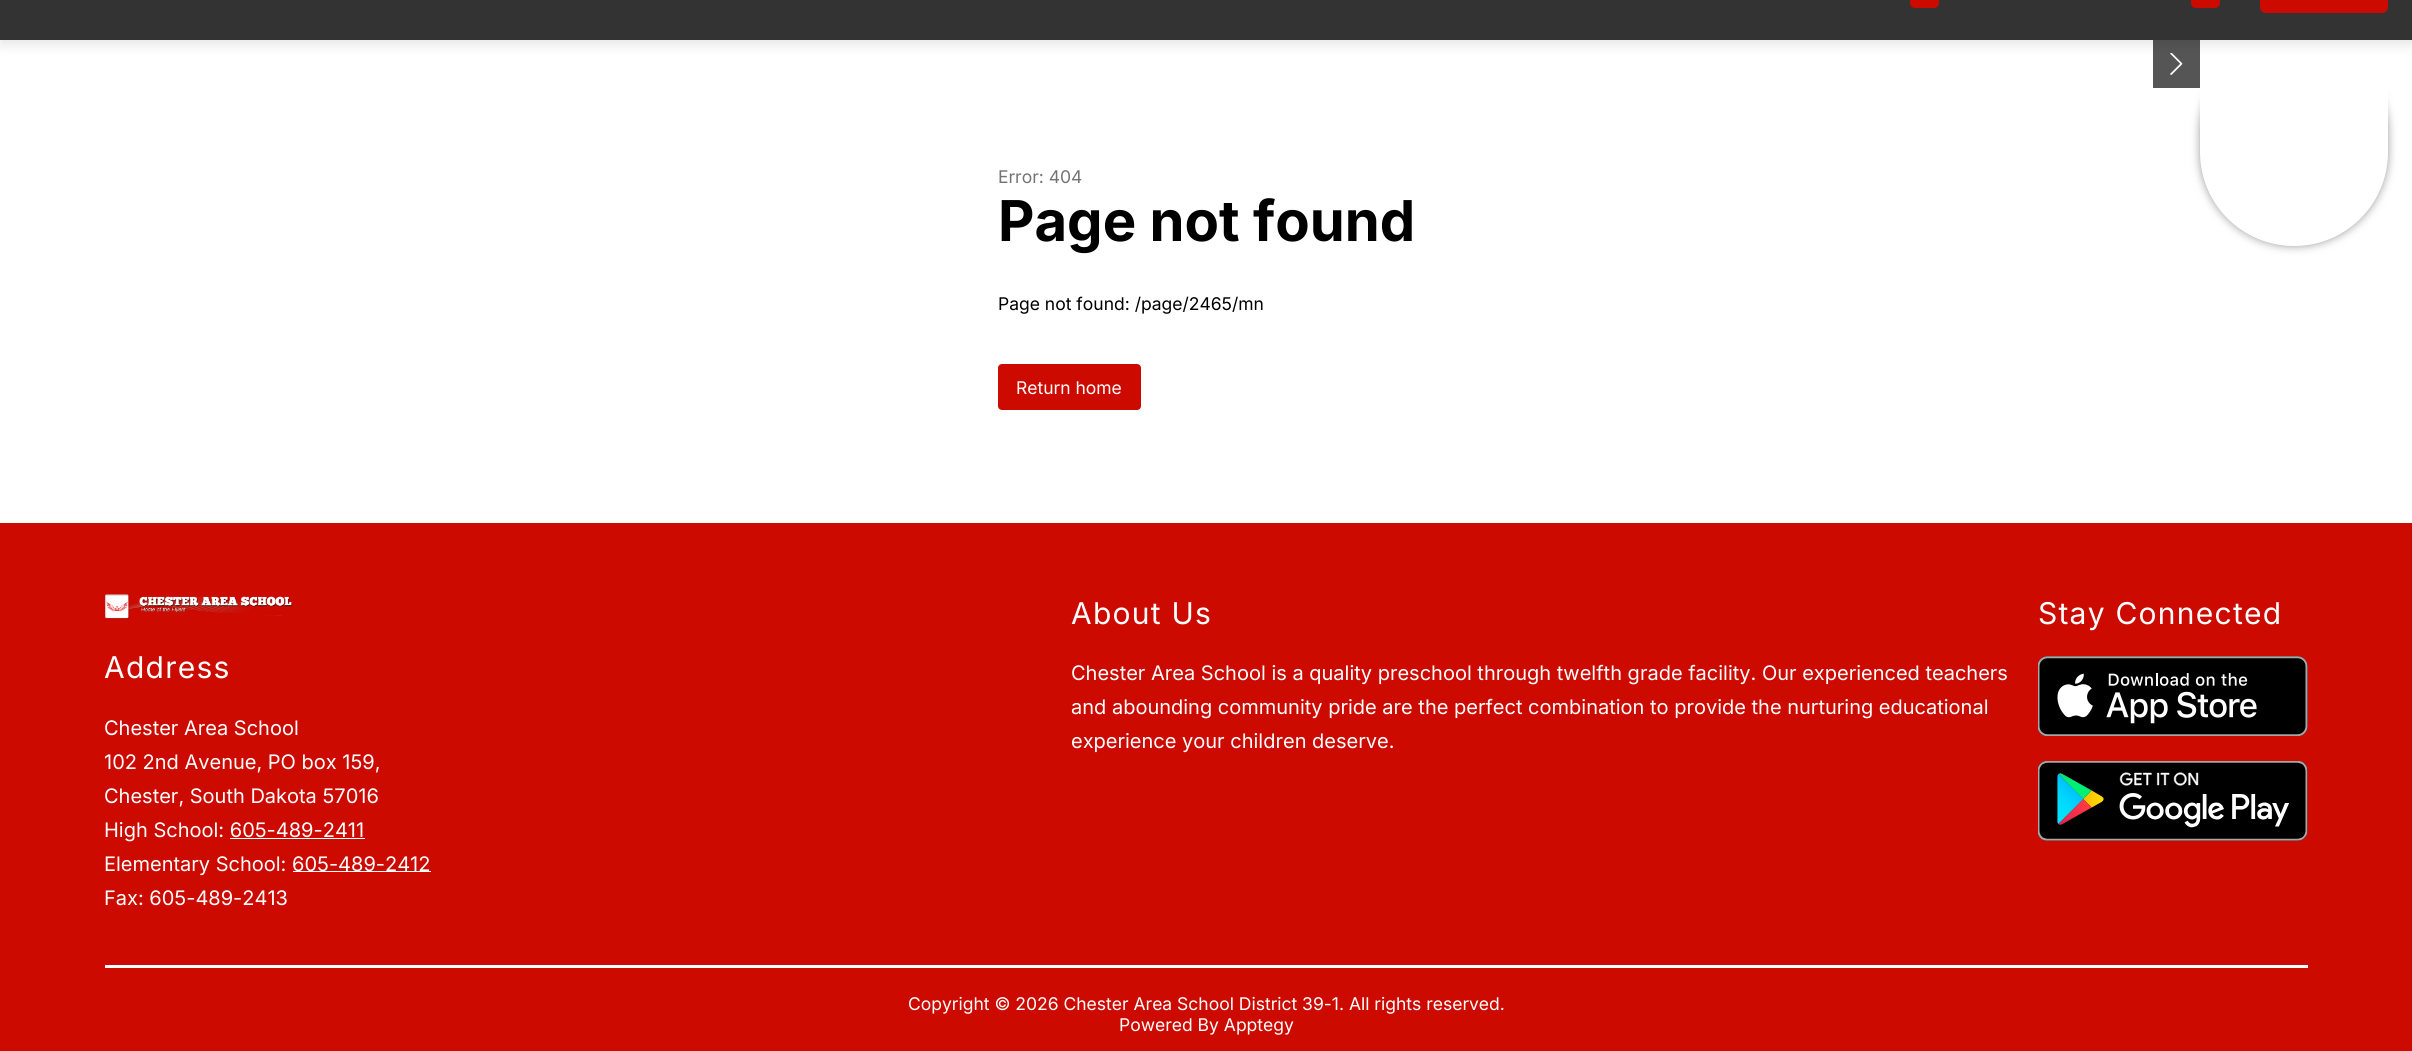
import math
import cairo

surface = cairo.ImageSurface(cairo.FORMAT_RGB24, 2412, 1051)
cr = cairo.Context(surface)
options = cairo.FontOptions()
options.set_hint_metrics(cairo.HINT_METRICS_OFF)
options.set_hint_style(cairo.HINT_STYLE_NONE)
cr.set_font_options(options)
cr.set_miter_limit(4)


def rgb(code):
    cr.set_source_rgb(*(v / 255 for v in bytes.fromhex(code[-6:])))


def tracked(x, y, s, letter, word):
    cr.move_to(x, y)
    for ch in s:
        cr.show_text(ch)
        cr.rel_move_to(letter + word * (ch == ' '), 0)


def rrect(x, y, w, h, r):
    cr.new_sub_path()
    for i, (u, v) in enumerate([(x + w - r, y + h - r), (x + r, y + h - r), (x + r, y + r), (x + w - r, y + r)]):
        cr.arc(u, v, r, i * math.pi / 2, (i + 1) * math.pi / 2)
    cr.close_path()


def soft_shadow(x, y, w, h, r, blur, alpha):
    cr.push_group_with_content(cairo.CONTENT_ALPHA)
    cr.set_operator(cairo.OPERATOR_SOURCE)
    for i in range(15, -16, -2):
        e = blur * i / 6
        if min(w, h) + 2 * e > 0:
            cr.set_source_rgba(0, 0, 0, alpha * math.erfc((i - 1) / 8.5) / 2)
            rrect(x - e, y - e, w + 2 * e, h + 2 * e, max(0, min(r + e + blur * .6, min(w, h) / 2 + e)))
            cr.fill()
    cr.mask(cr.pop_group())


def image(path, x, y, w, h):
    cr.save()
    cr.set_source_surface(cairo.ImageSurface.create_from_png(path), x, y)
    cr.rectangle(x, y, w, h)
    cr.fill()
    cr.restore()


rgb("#ffffff")
cr.paint()
rgb("#000000")
soft_shadow(2200, 40, 188, 206, 94, 4.5, 0.4)
rgb("#555555")
cr.rectangle(2153, 40, 47, 48)
cr.fill()
image("img/2.png", 2170, 53, 13, 22)
rgb("#ffffff")
cr.new_path()
cr.move_to(2200, 40)
cr.line_to(2388, 40)
cr.line_to(2388, 152)
cr.curve_to(2388, 204, 2346, 246, 2294, 246)
cr.curve_to(2242, 246, 2200, 204, 2200, 152)
cr.close_path()
cr.fill()
rgb("#000000")
soft_shadow(0, -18, 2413, 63, 0, 6, 0.1)
rgb("#333333")
cr.rectangle(0, 0, 2412, 40)
cr.fill()
image("img/1.png", 1910, 0, 29, 8)
image("img/1.png", 2191, 0, 29, 8)
rgb("#cc0a00")
rrect(2260.5, -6.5, 127, 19, 5.5)
cr.fill_preserve()
cr.set_line_width(1)
cr.stroke()
rrect(998, 364, 143, 46, 4)
cr.fill()
cr.rectangle(0, 523, 2412, 528)
cr.fill()
image("img/3.png", 105, 594, 188, 26)
rgb("#ffffff")
cr.rectangle(230, 838, 135, 1)
cr.fill()
cr.rectangle(293, 871, 138, 1)
cr.fill()
image("img/4.png", 2038, 656, 270, 80)
image("img/5.png", 2038, 761, 270, 80)
cr.rectangle(105, 965, 2203, 3)
cr.fill()
cr.select_font_face("Inter")
cr.set_font_size(17.5)
rgb("#747474")
cr.move_to(998, 183)
cr.show_text("Error: 404")
cr.select_font_face("Inter", cairo.FONT_SLANT_NORMAL, cairo.FONT_WEIGHT_BOLD)
cr.set_font_size(56.25)
rgb("#000000")
cr.move_to(998, 241)
cr.show_text("Page not found")
cr.select_font_face("Inter")
cr.set_font_size(17.5)
cr.move_to(998, 310)
cr.show_text("Page not found: /page/2465/mn")
rgb("#ffffff")
cr.move_to(1016, 394)
cr.show_text("Return home")
cr.set_font_size(30)
tracked(104, 678, "Address", 1.25, 0)
cr.set_font_size(20)
for x, y, s in [
    (104, 735, "Chester Area School"),
    (104, 769, "102 2nd Avenue, PO box 159,"),
    (104, 803, "Chester, South Dakota 57016"),
    (104, 837, "High School: 605-489-2411"),
    (104, 871, "Elementary School:"),
    (292, 871, "605-489-2412"),
    (104, 905, "Fax: 605-489-2413"),
]:
    cr.move_to(x, y)
    cr.show_text(s)
cr.set_font_size(30)
tracked(1071, 624, "About Us", 1.25, 0)
cr.set_font_size(20)
for x, y, s in [
    (1071, 680, "Chester Area School is a quality preschool through twelfth grade facility. Our experienced teachers"),
    (1071, 714, "and abounding community pride are the perfect combination to provide the nurturing educational"),
    (1071, 748, "experience your children deserve."),
]:
    cr.move_to(x, y)
    cr.show_text(s)
cr.set_font_size(30)
tracked(2038, 624, "Stay Connected", 1.25, 0)
cr.set_font_size(17.5)
cr.move_to(908, 1010)
cr.show_text("Copyright © 2026 Chester Area School District 39-1. All rights reserved.")
cr.move_to(1119, 1031)
cr.show_text("Powered By Apptegy")
surface.write_to_png("page.png")
